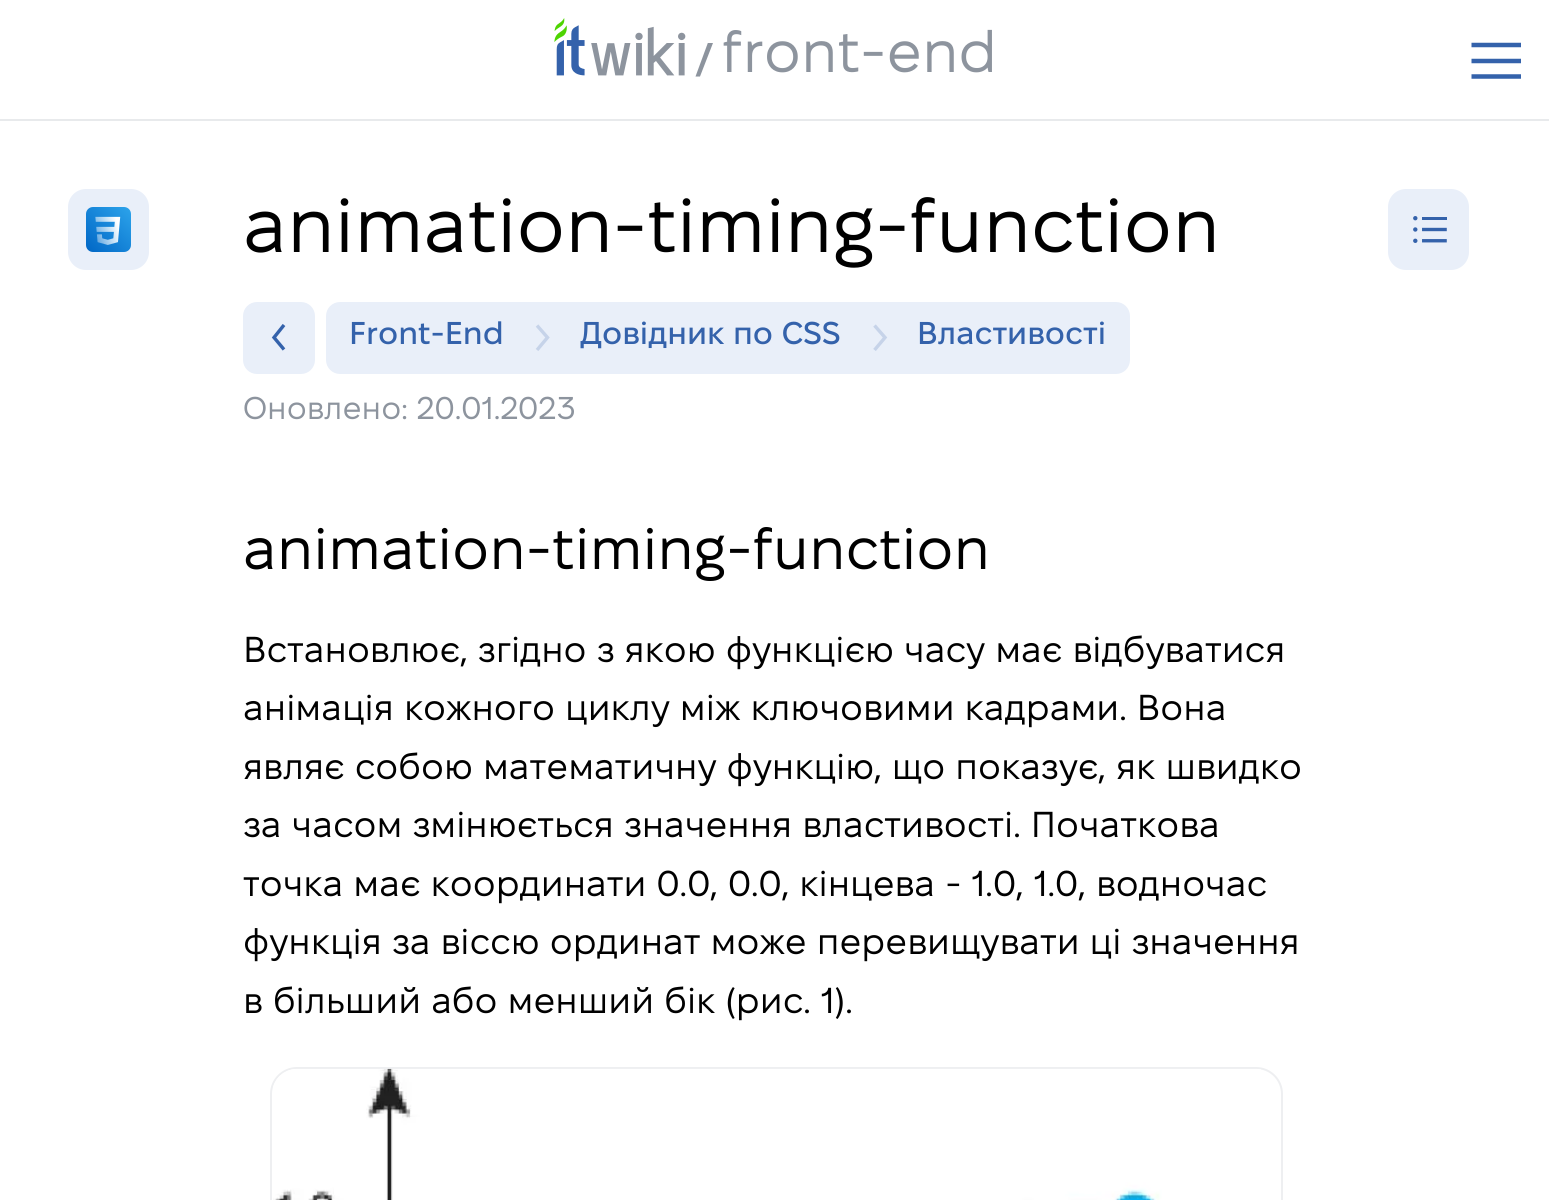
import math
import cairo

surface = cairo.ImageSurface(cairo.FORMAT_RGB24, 1549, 1200)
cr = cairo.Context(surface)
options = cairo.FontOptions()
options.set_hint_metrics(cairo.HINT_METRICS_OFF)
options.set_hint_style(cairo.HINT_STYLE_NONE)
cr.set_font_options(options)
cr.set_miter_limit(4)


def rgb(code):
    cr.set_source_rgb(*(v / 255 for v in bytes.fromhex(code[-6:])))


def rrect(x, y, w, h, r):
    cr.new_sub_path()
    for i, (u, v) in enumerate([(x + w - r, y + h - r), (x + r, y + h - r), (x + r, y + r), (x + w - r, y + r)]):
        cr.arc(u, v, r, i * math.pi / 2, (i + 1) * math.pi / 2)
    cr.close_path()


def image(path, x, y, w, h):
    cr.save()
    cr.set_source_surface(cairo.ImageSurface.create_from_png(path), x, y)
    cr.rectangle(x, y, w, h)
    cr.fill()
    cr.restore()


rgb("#ffffff")
cr.paint()
rgb("#e8eaec")
cr.rectangle(0, 119, 1549, 2)
cr.fill()
image("img/1.png", 554, 18, 132, 58)
cr.save()
cr.rectangle(695, 43, 18, 34)
cr.clip()
rgb("#8d949e")
cr.set_fill_rule(cairo.FILL_RULE_EVEN_ODD)
cr.new_path()
cr.move_to(695.5, 76.5)
cr.line_to(708, 42.5)
cr.line_to(713, 43)
cr.line_to(700, 76.5)
cr.close_path()
cr.fill()
cr.restore()
cr.new_path()
cr.move_to(1471.5, 45)
cr.line_to(1521, 45)
cr.move_to(1471.5, 61)
cr.line_to(1521, 61)
cr.move_to(1471.5, 76.5)
cr.line_to(1521, 76.5)
rgb("#3462ab")
cr.set_line_width(4.5)
cr.stroke()
rgb("#e9eff9")
rrect(68, 189, 81, 81, 18)
cr.fill()
gradient = cairo.LinearGradient(131, 207, 86, 252)
gradient.add_color_stop_rgba(0, 0.176, 0.643, 0.922, 1)
gradient.add_color_stop_rgba(1, 0, 0.4, 0.773, 1)
cr.set_source(gradient)
rrect(86, 207, 45, 45, 7)
cr.fill()
image("img/2.png", 95, 216, 26, 29)
rgb("#e9eff9")
rrect(243, 302, 72, 72, 14)
cr.fill()
cr.new_path()
cr.move_to(284, 349.5)
cr.line_to(274, 337.5)
cr.line_to(284, 325)
rgb("#3462ab")
cr.set_line_width(3.4)
cr.stroke()
rgb("#e9eff9")
rrect(326, 302, 804, 72, 14)
cr.fill()
cr.new_path()
cr.move_to(537, 325.5)
cr.line_to(547.5, 337.5)
cr.line_to(537, 350)
rgb("#c6d3e9")
cr.stroke()
cr.new_path()
cr.move_to(874.5, 325.5)
cr.line_to(885, 337.5)
cr.line_to(874.5, 350)
cr.stroke()
rrect(271, 1068, 1011, 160, 26)
rgb("#eeeff1")
cr.set_line_width(2)
cr.stroke()
image("img/3.png", 273, 1068, 988, 132)
rgb("#e9eff9")
rrect(1388, 189, 81, 81, 18)
cr.fill()
image("img/4.png", 1413, 216, 34, 27)
cr.select_font_face("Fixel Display")
cr.set_font_size(58.5)
rgb("#8d949e")
cr.move_to(722, 72)
cr.show_text("front-end")
cr.set_font_size(76.5)
rgb("#000000")
cr.move_to(243, 252)
cr.show_text("animation-timing-function")
cr.select_font_face("Fixel Display Medium")
cr.set_font_size(31.5)
rgb("#3462ab")
for x, y, s in [
    (349, 344, "Front-End"),
    (580, 344, "Довідник по CSS"),
    (917, 344, "Властивості"),
]:
    cr.move_to(x, y)
    cr.show_text(s)
cr.select_font_face("Fixel Display")
rgb("#8d949e")
cr.move_to(243, 419)
cr.show_text("Оновлено: 20.01.2023")
cr.set_font_size(58.5)
rgb("#000000")
cr.move_to(243, 569)
cr.show_text("animation-timing-function")
cr.set_font_size(36)
for x, y, s in [
    (243, 662, "Встановлює, згідно з якою функцією часу має відбуватися"),
    (243, 720, "анімація кожного циклу між ключовими кадрами. Вона"),
    (243, 779, "являє собою математичну функцію, що показує, як швидко"),
    (243, 837, "за часом змінюється значення властивості. Початкова"),
    (243, 896, "точка має координати 0.0, 0.0, кінцева - 1.0, 1.0, водночас"),
    (243, 954, "функція за віссю ординат може перевищувати ці значення"),
    (243, 1013, "в більший або менший бік (рис. 1)."),
]:
    cr.move_to(x, y)
    cr.show_text(s)
surface.write_to_png("page.png")
